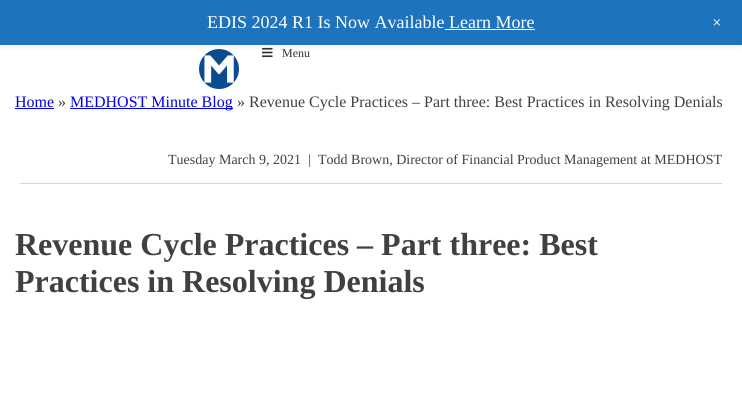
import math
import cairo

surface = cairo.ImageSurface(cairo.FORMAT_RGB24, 742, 398)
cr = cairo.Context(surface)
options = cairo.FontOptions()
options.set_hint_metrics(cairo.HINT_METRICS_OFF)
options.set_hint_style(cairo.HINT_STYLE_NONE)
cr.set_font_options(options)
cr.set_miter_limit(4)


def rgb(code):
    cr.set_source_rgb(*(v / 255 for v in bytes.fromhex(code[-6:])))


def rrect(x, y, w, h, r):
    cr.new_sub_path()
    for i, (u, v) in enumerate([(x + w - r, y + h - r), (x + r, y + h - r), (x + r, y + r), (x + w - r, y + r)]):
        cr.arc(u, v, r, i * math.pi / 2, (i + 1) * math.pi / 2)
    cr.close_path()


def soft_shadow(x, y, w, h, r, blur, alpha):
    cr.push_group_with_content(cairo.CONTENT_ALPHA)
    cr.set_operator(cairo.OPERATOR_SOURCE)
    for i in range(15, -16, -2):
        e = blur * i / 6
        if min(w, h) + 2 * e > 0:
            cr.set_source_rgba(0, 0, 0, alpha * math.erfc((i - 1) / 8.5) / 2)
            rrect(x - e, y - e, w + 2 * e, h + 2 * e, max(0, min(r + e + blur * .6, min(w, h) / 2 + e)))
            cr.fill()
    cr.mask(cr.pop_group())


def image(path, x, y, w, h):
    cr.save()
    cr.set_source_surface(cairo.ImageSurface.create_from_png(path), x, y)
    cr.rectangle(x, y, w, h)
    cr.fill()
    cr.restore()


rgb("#ffffff")
cr.paint()
image("img/1.png", 199, 49, 40, 40)
image("img/2.png", 262, 47, 11, 11)
rgb("#000000")
soft_shadow(0, 3, 742, 45, 0, 2, 0.05)
for x, y, w, h, color in [
    (0, 0, 742, 45, "#1e73be"),
    (445, 29, 90, 1, "#ffffff"),
    (15, 108, 39, 1, "#0000ee"),
    (70, 108, 163, 1, "#0000ee"),
    (20, 183, 702, 1, "#d6d6d7"),
]:
    rgb(color)
    cr.rectangle(x, y, w, h)
    cr.fill()
cr.select_font_face("Liberation Serif")
cr.set_font_size(18)
rgb("#ffffff")
cr.move_to(207, 28)
cr.show_text("EDIS 2024 R1 Is Now Available Learn More")
cr.save()
cr.translate(709, 23)
cr.rotate(45 * math.pi / 180)
cr.move_to(0, 0)
cr.show_text("+")
cr.restore()
cr.set_font_size(12)
rgb("#333333")
cr.move_to(282, 57)
cr.show_text("Menu")
cr.set_font_size(16)
rgb("#0000ee")
cr.move_to(15, 107)
cr.show_text("Home")
rgb("#404040")
cr.move_to(58, 107)
cr.show_text("»")
rgb("#0000ee")
cr.move_to(70, 107)
cr.show_text("MEDHOST Minute Blog")
rgb("#404040")
cr.move_to(237, 107)
cr.show_text("» Revenue Cycle Practices – Part three: Best Practices in Resolving Denials")
cr.set_font_size(14)
for x, y, s in [
    (168, 164, "Tuesday March 9, 2021"),
    (308, 164, "|"),
    (318, 164, "Todd Brown, Director of Financial Product Management at MEDHOST"),
]:
    cr.move_to(x, y)
    cr.show_text(s)
cr.select_font_face("Liberation Serif", cairo.FONT_SLANT_NORMAL, cairo.FONT_WEIGHT_BOLD)
cr.set_font_size(32)
cr.move_to(15, 255)
cr.show_text("Revenue Cycle Practices – Part three: Best")
cr.move_to(15, 292)
cr.show_text("Practices in Resolving Denials")
surface.write_to_png("page.png")
